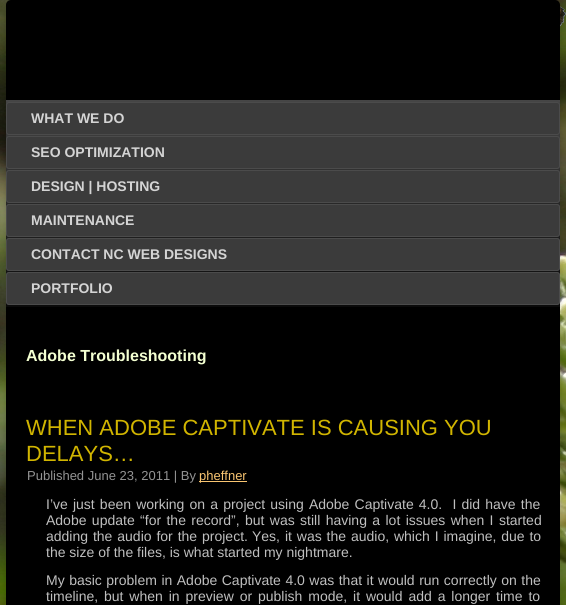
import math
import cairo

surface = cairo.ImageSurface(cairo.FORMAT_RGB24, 566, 605)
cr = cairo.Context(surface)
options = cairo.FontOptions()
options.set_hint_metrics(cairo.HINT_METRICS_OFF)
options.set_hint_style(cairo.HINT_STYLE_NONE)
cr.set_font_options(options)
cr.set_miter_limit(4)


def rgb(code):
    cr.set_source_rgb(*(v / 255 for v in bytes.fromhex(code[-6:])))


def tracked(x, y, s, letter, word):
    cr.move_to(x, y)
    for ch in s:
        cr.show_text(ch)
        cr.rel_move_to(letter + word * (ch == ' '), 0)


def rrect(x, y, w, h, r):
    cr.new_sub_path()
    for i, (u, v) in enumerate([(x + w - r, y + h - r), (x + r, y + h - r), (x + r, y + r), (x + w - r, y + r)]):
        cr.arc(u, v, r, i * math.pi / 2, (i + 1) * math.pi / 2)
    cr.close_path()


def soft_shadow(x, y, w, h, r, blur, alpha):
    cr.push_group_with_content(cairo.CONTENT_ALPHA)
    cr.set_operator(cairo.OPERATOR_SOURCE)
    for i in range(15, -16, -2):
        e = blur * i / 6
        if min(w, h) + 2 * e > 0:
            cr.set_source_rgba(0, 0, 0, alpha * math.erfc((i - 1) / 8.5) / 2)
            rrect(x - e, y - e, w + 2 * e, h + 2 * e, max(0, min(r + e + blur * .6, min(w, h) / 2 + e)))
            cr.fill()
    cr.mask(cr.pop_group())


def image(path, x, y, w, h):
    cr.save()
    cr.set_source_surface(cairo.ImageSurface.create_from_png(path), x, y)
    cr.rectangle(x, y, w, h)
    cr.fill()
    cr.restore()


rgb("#ffffff")
cr.paint()
image("img/1.png", 0, 0, 566, 605)
rgb("#000000")
soft_shadow(4, -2, 558, 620, 7, 2, 0.1)
rgb("#000000")
rrect(6, 0, 554, 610, 5)
cr.fill()
gradient = cairo.LinearGradient(283, 100, 283, 307)
gradient.add_color_stop_rgba(0, 0.271, 0.271, 0.271, 1)
gradient.add_color_stop_rgba(1, 0.039, 0.039, 0.039, 1)
cr.set_source(gradient)
cr.rectangle(6, 100, 554, 207)
cr.fill()
rgb("#3b3b3b")
rrect(6, 102, 554, 33, 3)
cr.fill()
rrect(6.5, 102.5, 553, 32, 2.5)
cr.set_source_rgba(0.31, 0.31, 0.31, 0.8)
cr.set_line_width(1)
cr.stroke()
rgb("#3b3b3b")
rrect(6, 136, 554, 33, 3)
cr.fill()
rrect(6.5, 136.5, 553, 32, 2.5)
cr.set_source_rgba(0.31, 0.31, 0.31, 0.8)
cr.stroke()
rgb("#3b3b3b")
rrect(6, 170, 554, 33, 3)
cr.fill()
rrect(6.5, 170.5, 553, 32, 2.5)
cr.set_source_rgba(0.31, 0.31, 0.31, 0.8)
cr.stroke()
rgb("#3b3b3b")
rrect(6, 204, 554, 33, 3)
cr.fill()
rrect(6.5, 204.5, 553, 32, 2.5)
cr.set_source_rgba(0.31, 0.31, 0.31, 0.8)
cr.stroke()
rgb("#3b3b3b")
rrect(6, 238, 554, 33, 3)
cr.fill()
rrect(6.5, 238.5, 553, 32, 2.5)
cr.set_source_rgba(0.31, 0.31, 0.31, 0.8)
cr.stroke()
rgb("#3b3b3b")
rrect(6, 272, 554, 33, 3)
cr.fill()
rrect(6.5, 272.5, 553, 32, 2.5)
cr.set_source_rgba(0.31, 0.31, 0.31, 0.8)
cr.stroke()
rgb("#f9c571")
cr.rectangle(199, 481, 48, 1)
cr.fill()
cr.select_font_face("Liberation Sans", cairo.FONT_SLANT_NORMAL, cairo.FONT_WEIGHT_BOLD)
cr.set_font_size(14)
rgb("#d4d4d4")
for x, y, s in [
    (31, 123, "WHAT WE DO"),
    (31, 157, "SEO OPTIMIZATION"),
    (31, 191, "DESIGN | HOSTING"),
    (31, 225, "MAINTENANCE"),
    (31, 259, "CONTACT NC WEB DESIGNS"),
    (31, 293, "PORTFOLIO"),
]:
    cr.move_to(x, y)
    cr.show_text(s)
cr.set_font_size(16)
rgb("#f3ffd1")
cr.move_to(26, 361)
cr.show_text("Adobe Troubleshooting")
cr.select_font_face("Liberation Sans")
cr.set_font_size(22)
rgb("#d1b500")
cr.move_to(26, 435)
cr.show_text("WHEN ADOBE CAPTIVATE IS CAUSING YOU")
cr.move_to(26, 461)
cr.show_text("DELAYS…")
cr.set_font_size(13)
rgb("#949494")
cr.move_to(27, 480)
cr.show_text("Published June 23, 2011 | By")
rgb("#f9c571")
cr.move_to(199, 480)
cr.show_text("pheffner")
cr.set_font_size(14)
rgb("#bfbfbf")
tracked(46, 509, "I’ve just been working on a project using Adobe Captivate 4.0.  I did have the", 0, 1.25)
tracked(46, 525, "Adobe update “for the record”, but was still having a lot issues when I started", 0, 1.5)
tracked(46, 541, "adding the audio for the project.", 0, 1)
tracked(252, 541, "Yes, it was the audio, which I imagine, due to", 0, 1)
cr.move_to(46, 557)
cr.show_text("the size of the files, is what started my nightmare.")
tracked(46, 585, "My basic problem in Adobe Captivate 4.0 was that it would run correctly on the", 0, 0.6)
tracked(46, 601, "timeline, but when in preview or publish mode, it would add a longer time to", 0, 2)
surface.write_to_png("page.png")
